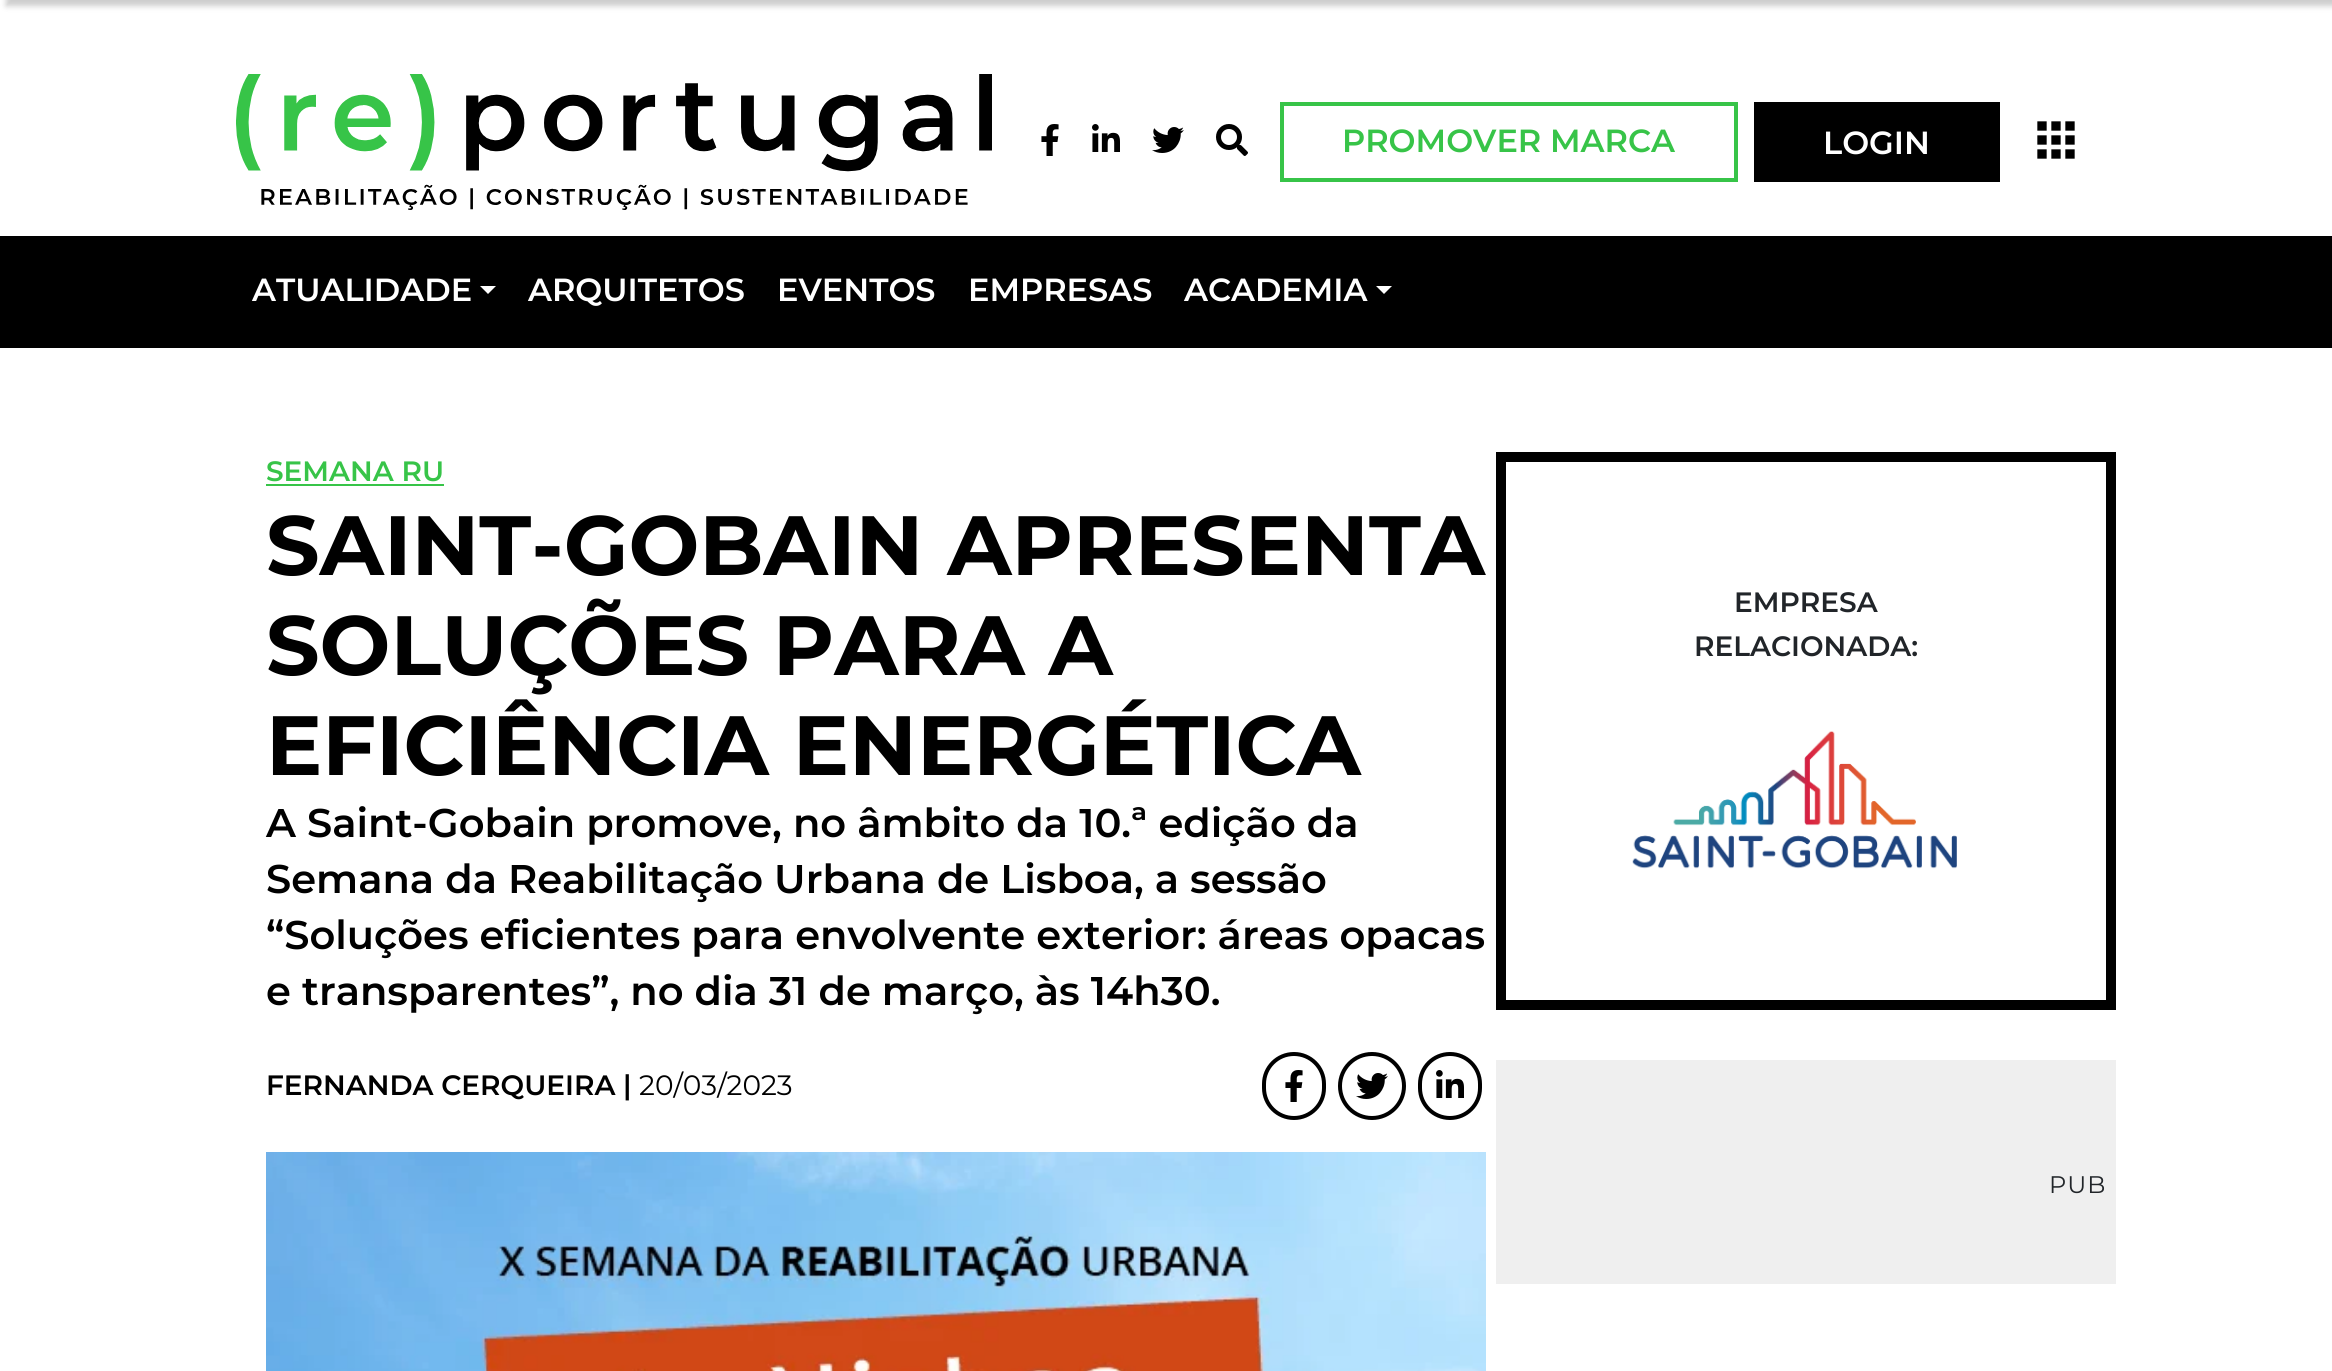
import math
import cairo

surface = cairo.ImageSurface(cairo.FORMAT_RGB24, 2332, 1371)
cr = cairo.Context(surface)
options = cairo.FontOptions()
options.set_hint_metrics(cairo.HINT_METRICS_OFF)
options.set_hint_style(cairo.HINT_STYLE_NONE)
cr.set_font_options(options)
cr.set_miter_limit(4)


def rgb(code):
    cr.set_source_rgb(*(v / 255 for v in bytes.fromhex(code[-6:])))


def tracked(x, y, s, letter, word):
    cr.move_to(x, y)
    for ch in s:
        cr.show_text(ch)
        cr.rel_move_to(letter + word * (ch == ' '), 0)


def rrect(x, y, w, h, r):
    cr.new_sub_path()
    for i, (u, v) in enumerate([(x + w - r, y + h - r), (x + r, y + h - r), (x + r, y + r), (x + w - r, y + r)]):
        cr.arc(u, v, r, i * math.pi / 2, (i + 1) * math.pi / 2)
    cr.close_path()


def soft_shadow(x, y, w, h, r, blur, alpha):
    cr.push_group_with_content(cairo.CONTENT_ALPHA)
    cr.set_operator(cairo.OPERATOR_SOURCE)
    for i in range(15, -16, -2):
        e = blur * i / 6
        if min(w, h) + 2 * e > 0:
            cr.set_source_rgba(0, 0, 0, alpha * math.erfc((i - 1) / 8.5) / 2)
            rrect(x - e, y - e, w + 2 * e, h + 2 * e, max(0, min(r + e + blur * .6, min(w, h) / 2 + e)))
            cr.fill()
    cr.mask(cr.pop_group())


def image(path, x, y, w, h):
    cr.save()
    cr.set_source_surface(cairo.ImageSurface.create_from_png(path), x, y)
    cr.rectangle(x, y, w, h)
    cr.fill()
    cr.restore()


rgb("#ffffff")
cr.paint()
rgb("#000000")
soft_shadow(6, -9, 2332, 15, 0, 3, 0.2)
image("img/1.png", 236, 74, 756, 136)
image("img/2.png", 1041, 124, 18, 32)
image("img/3.png", 1092, 124, 28, 28)
image("img/4.png", 1152, 127, 32, 26)
image("img/5.png", 1216, 124, 32, 32)
cr.rectangle(1282, 104, 454, 76)
rgb("#37c448")
cr.set_line_width(4)
cr.stroke()
rgb("#000000")
cr.rectangle(1754, 102, 246, 80)
cr.fill()
image("img/6.png", 2037, 121, 38, 38)
cr.rectangle(0, 236, 2332, 112)
cr.fill()
rgb("#ffffff")
cr.new_path()
cr.move_to(480, 286)
cr.line_to(496, 286)
cr.line_to(488, 294)
cr.close_path()
cr.fill()
cr.new_path()
cr.move_to(1376, 286)
cr.line_to(1392, 286)
cr.line_to(1384, 294)
cr.close_path()
cr.fill()
rgb("#37c448")
cr.rectangle(266, 484, 178, 2)
cr.fill()
rrect(1264, 1054, 60, 64, 30)
rgb("#000000")
cr.stroke()
image("img/2.png", 1285, 1070, 18, 32)
cr.arc(1372, 1086, 32, 0, 2 * math.pi)
cr.stroke()
image("img/4.png", 1356, 1073, 32, 26)
rrect(1420, 1054, 60, 64, 30)
cr.stroke()
image("img/3.png", 1436, 1070, 28, 28)
image("img/7.png", 266, 1152, 1220, 219)
cr.rectangle(1501, 457, 610, 548)
cr.set_line_width(10)
cr.stroke()
image("img/8.png", 1632, 731, 325, 138)
rgb("#efefef")
cr.rectangle(1496, 1060, 620, 224)
cr.fill()
cr.select_font_face("Montserrat SemiBold")
cr.set_font_size(32)
rgb("#37c448")
cr.move_to(1342, 152)
cr.show_text("PROMOVER MARCA")
rgb("#ffffff")
for x, y, s in [
    (1823, 154, "LOGIN"),
    (252, 301, "ATUALIDADE"),
    (528, 301, "ARQUITETOS"),
    (777, 301, "EVENTOS"),
    (968, 301, "EMPRESAS"),
    (1184, 301, "ACADEMIA"),
]:
    cr.move_to(x, y)
    cr.show_text(s)
cr.set_font_size(28)
rgb("#37c448")
cr.move_to(266, 481)
cr.show_text("SEMANA RU")
cr.select_font_face("Montserrat", cairo.FONT_SLANT_NORMAL, cairo.FONT_WEIGHT_BOLD)
cr.set_font_size(84)
rgb("#000000")
for x, y, s in [
    (266, 575, "SAINT-GOBAIN APRESENTA"),
    (266, 675, "SOLUÇÕES PARA A"),
    (266, 775, "EFICIÊNCIA ENERGÉTICA"),
]:
    cr.move_to(x, y)
    cr.show_text(s)
cr.select_font_face("Montserrat SemiBold")
cr.set_font_size(40)
for x, y, s in [
    (266, 837, "A Saint-Gobain promove, no âmbito da 10.ª edição da"),
    (266, 893, "Semana da Reabilitação Urbana de Lisboa, a sessão"),
    (266, 949, "“Soluções eficientes para envolvente exterior: áreas opacas"),
    (266, 1005, "e transparentes”, no dia 31 de março, às 14h30."),
]:
    cr.move_to(x, y)
    cr.show_text(s)
cr.set_font_size(28)
cr.move_to(266, 1095)
cr.show_text("FERNANDA CERQUEIRA |")
cr.select_font_face("Montserrat")
cr.move_to(639, 1095)
cr.show_text("20/03/2023")
cr.select_font_face("Montserrat SemiBold")
rgb("#212529")
cr.move_to(1734, 612)
cr.show_text("EMPRESA")
cr.move_to(1694, 656)
cr.show_text("RELACIONADA:")
cr.select_font_face("Montserrat")
cr.set_font_size(24)
tracked(2049, 1193, "PUB", 1, 0)
surface.write_to_png("page.png")
